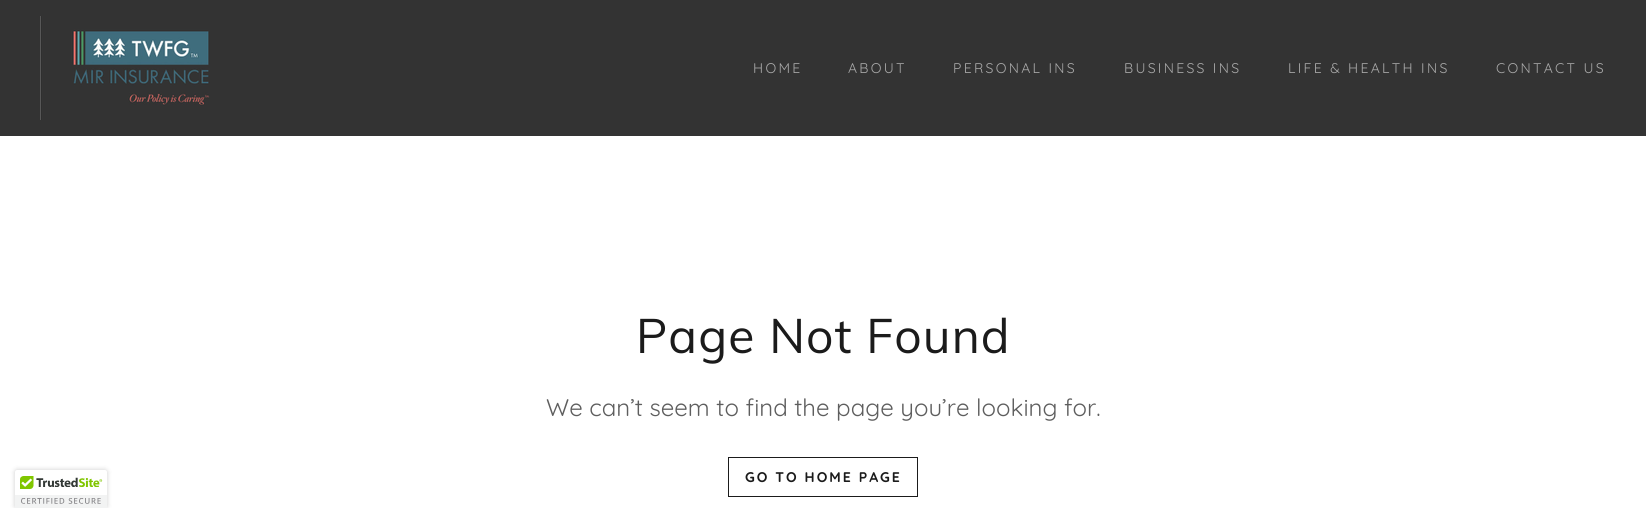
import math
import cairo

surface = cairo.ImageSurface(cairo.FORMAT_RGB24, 1646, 508)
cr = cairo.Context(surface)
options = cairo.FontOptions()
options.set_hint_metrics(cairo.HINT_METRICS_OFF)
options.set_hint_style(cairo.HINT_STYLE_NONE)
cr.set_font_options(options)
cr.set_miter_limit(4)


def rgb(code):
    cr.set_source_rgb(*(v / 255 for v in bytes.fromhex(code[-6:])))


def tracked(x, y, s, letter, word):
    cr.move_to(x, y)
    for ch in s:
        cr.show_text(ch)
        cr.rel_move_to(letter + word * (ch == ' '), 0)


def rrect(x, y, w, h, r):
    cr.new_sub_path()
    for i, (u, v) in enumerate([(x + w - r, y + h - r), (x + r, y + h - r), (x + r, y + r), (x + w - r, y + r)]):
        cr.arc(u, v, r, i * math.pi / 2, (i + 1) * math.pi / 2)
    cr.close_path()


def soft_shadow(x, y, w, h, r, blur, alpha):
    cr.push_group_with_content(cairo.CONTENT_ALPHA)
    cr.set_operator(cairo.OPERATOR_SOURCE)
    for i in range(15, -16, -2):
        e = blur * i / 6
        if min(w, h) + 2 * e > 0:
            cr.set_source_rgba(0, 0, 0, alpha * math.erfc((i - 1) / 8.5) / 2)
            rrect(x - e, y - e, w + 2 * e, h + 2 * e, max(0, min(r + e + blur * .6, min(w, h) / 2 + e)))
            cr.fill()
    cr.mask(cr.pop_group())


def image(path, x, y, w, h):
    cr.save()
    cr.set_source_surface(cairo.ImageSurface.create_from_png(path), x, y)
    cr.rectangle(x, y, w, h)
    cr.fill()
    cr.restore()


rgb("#ffffff")
cr.paint()
rgb("#000000")
soft_shadow(15, 470, 92, 38, 2, 2.5, 0.2)
rgb("#ffffff")
cr.new_path()
cr.move_to(17, 470)
cr.line_to(105, 470)
cr.curve_to(106, 470, 107, 471, 107, 472)
cr.line_to(107, 508)
cr.line_to(15, 508)
cr.line_to(15, 472)
cr.curve_to(15, 471, 16, 470, 17, 470)
cr.close_path()
cr.fill()
image("img/1.png", 15, 476, 92, 32)
rgb("#333333")
cr.rectangle(0, 0, 1646, 136)
cr.fill()
image("img/2.png", 40, 16, 170, 104)
cr.rectangle(728.5, 457.5, 189, 39)
rgb("#1b1b1b")
cr.set_line_width(1)
cr.stroke()
cr.select_font_face("Quicksand")
cr.set_font_size(14)
rgb("#a9a9a9")
for x, y, s in [
    (753, 73, "HOME"),
    (848, 73, "ABOUT"),
    (953, 73, "PERSONAL INS"),
    (1124, 73, "BUSINESS INS"),
    (1288, 73, "LIFE & HEALTH INS"),
    (1496, 73, "CONTACT US"),
]:
    tracked(x, y, s, 2.3, 0)
cr.select_font_face("Muli")
cr.set_font_size(48)
rgb("#1b1b1b")
tracked(636, 353, "Page Not Found", 1.1, 0)
cr.select_font_face("Quicksand")
cr.set_font_size(24)
rgb("#5e5e5e")
cr.move_to(546, 416)
cr.show_text("We can’t seem to find the page you’re looking for.")
cr.select_font_face("Quicksand", cairo.FONT_SLANT_NORMAL, cairo.FONT_WEIGHT_BOLD)
cr.set_font_size(14)
rgb("#1b1b1b")
tracked(745, 482, "GO TO HOME PAGE", 2, 0)
surface.write_to_png("page.png")
